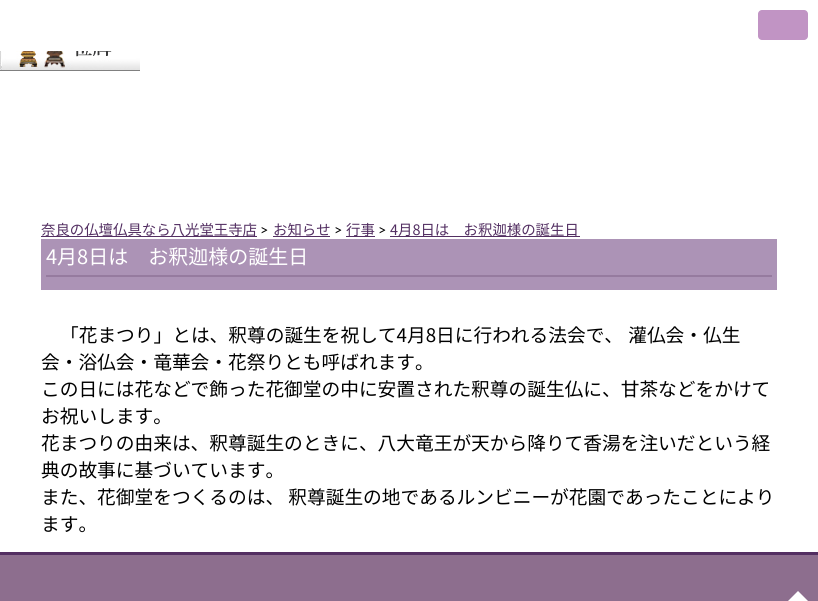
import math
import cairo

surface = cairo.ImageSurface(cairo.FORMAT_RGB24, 818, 601)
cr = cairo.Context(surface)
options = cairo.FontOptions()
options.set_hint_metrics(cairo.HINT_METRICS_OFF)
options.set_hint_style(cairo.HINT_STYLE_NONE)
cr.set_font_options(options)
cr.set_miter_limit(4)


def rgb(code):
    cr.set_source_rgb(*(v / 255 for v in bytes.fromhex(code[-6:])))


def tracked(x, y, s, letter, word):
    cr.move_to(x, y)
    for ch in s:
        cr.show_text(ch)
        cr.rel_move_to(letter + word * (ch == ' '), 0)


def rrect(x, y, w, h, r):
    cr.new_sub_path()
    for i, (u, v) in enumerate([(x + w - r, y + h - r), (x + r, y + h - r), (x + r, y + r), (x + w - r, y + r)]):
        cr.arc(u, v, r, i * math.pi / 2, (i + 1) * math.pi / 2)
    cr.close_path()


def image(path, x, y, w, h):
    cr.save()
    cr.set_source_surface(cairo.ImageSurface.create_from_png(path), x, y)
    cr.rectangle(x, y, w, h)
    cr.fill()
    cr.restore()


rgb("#ffffff")
cr.paint()
rgb("#c194c4")
rrect(758, 10, 50, 30, 4)
cr.fill()
image("img/1.png", 0, 51, 140, 20)
for x, y, w, h, color in [
    (41, 236, 216, 1, "#532f62"),
    (273, 236, 57, 1, "#532f62"),
    (346, 236, 29, 1, "#532f62"),
    (390, 236, 190, 1, "#532f62"),
    (41, 239, 736, 51, "#ac93b6"),
    (46, 275, 726, 2, "#967b9f"),
    (0, 555, 818, 46, "#8d6e8e"),
    (0, 552, 818, 3, "#532e61"),
]:
    rgb(color)
    cr.rectangle(x, y, w, h)
    cr.fill()
rgb("#ffffff")
cr.new_path()
cr.move_to(813, 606)
cr.line_to(783, 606)
cr.line_to(798, 591)
cr.close_path()
cr.fill()
cr.select_font_face("Noto Sans JP")
cr.set_font_size(14.4)
rgb("#532f62")
cr.move_to(41, 235)
cr.show_text("奈良の仏壇仏具なら八光堂王寺店")
cr.select_font_face("Lato")
rgb("#000000")
cr.move_to(260, 235)
cr.show_text(">")
cr.select_font_face("Noto Sans JP")
rgb("#532f62")
cr.move_to(273, 235)
cr.show_text("お知らせ")
cr.select_font_face("Lato")
rgb("#000000")
cr.move_to(334, 235)
cr.show_text(">")
cr.select_font_face("Noto Sans JP")
rgb("#532f62")
cr.move_to(346, 235)
cr.show_text("行事")
cr.select_font_face("Lato")
rgb("#000000")
cr.move_to(378, 235)
cr.show_text(">")
cr.select_font_face("Noto Sans JP")
rgb("#532f62")
cr.move_to(390, 235)
cr.show_text("4月8日は　お釈迦様の誕生日")
cr.set_font_size(20)
rgb("#ffffff")
cr.move_to(46, 264)
cr.show_text("4月8日は　お釈迦様の誕生日")
cr.set_font_size(18.7)
rgb("#000000")
tracked(60, 342, "「花まつり」とは、釈尊の誕生を祝して4月8日に行われる法会で、 灌仏会・仏生", 0, 1)
for x, y, s in [
    (41, 369, "会・浴仏会・竜華会・花祭りとも呼ばれます。"),
    (41, 396, "この日には花などで飾った花御堂の中に安置された釈尊の誕生仏に、甘茶などをかけて"),
    (41, 423, "お祝いします。"),
    (41, 450, "花まつりの由来は、釈尊誕生のときに、八大竜王が天から降りて香湯を注いだという経"),
    (41, 477, "典の故事に基づいています。"),
    (41, 504, "また、花御堂をつくるのは、 釈尊誕生の地であるルンビニーが花園であったことにより"),
    (41, 531, "ます。"),
]:
    cr.move_to(x, y)
    cr.show_text(s)
surface.write_to_png("page.png")
